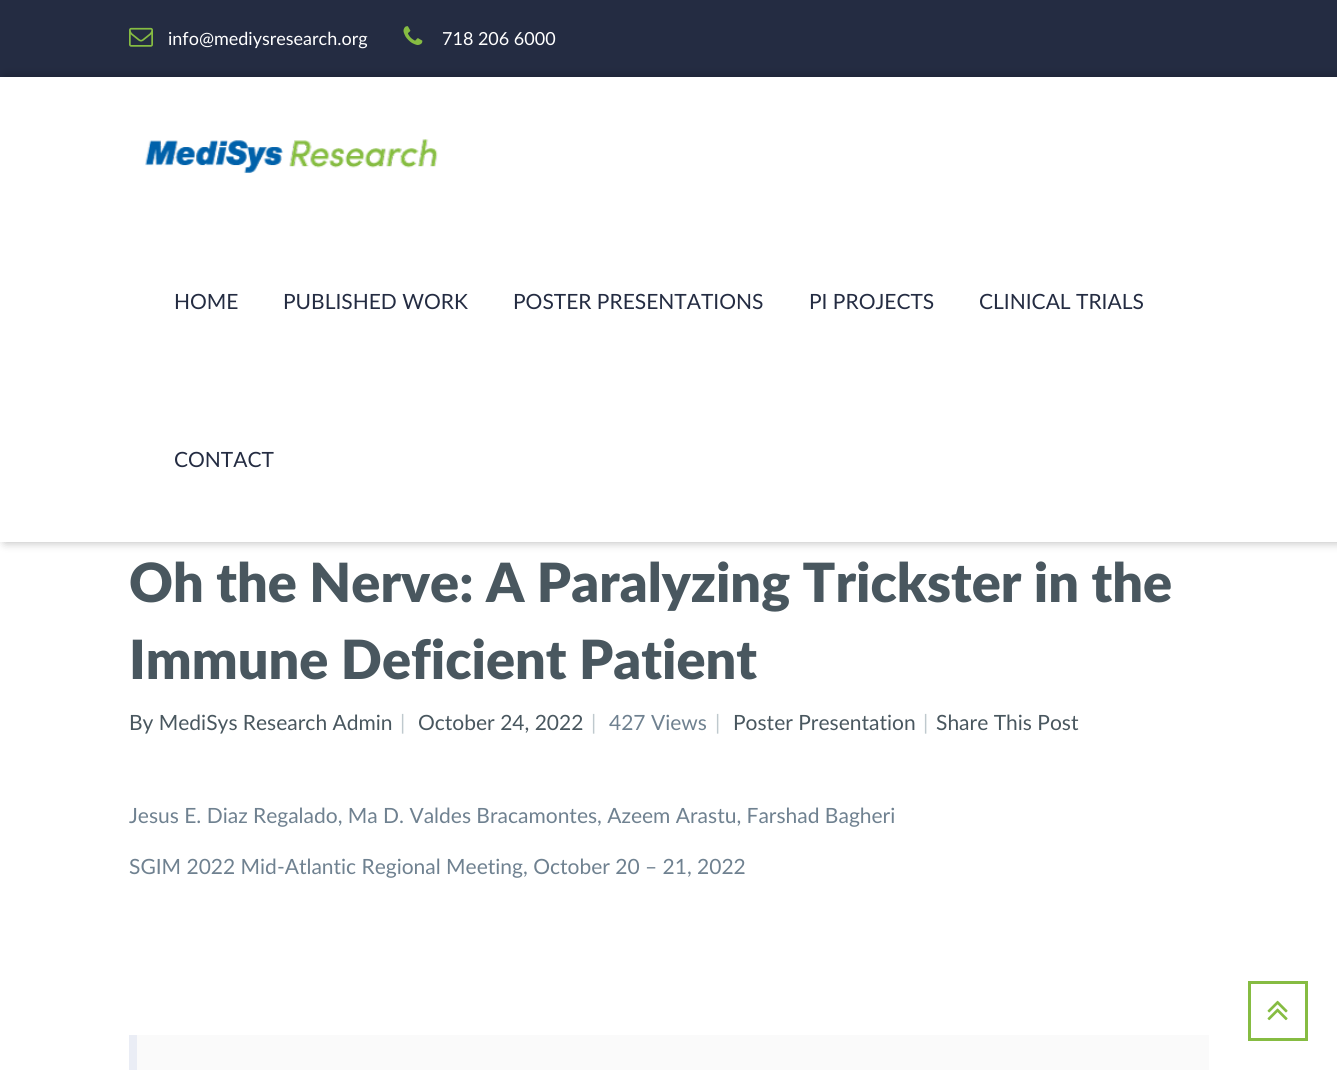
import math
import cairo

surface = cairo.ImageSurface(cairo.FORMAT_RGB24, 1337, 1070)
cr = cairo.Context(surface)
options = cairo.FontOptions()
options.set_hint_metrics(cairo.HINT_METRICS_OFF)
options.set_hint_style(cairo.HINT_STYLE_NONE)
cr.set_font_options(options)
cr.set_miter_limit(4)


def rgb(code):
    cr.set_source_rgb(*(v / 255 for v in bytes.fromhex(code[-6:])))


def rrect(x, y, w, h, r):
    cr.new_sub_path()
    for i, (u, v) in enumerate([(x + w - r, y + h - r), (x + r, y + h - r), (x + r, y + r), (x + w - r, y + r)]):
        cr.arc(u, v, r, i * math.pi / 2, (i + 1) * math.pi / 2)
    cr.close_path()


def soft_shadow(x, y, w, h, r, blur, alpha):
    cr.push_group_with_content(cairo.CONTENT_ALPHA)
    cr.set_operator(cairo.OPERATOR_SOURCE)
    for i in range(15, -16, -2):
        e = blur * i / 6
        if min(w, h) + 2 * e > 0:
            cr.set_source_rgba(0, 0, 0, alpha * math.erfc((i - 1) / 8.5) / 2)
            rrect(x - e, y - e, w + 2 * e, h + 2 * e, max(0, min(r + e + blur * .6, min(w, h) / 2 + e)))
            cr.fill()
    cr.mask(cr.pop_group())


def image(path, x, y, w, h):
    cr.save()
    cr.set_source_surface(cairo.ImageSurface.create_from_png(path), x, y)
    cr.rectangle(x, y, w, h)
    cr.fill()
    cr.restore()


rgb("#ffffff")
cr.paint()
rgb("#242c42")
cr.rectangle(0, 0, 1337, 77)
cr.fill()
image("img/1.png", 129, 27, 24, 20)
image("img/2.png", 403, 26, 20, 19)
rgb("#000000")
soft_shadow(5, 77, 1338, 465, 0, 5, 0.3)
rgb("#ffffff")
cr.rectangle(0, 77, 1337, 465)
cr.fill()
image("img/3.png", 145, 139, 293, 34)
rgb("#fafafa")
cr.rectangle(137, 1035, 1072, 35)
cr.fill()
rgb("#eaedf5")
cr.rectangle(129, 1035, 8, 35)
cr.fill()
cr.rectangle(1249.5, 982.5, 57, 57)
rgb("#86bc42")
cr.set_line_width(3)
cr.stroke()
image("img/4.png", 1267, 1000, 21, 21)
cr.select_font_face("Lato")
cr.set_font_size(18)
rgb("#ffffff")
cr.move_to(168, 45)
cr.show_text("info@mediysresearch.org")
cr.move_to(442, 45)
cr.show_text("718 206 6000")
cr.set_font_size(21)
rgb("#242c42")
for x, y, s in [
    (174, 309, "HOME"),
    (283, 309, "PUBLISHED WORK"),
    (513, 309, "POSTER PRESENTATIONS"),
    (809, 309, "PI PROJECTS"),
    (979, 309, "CLINICAL TRIALS"),
    (174, 467, "CONTACT"),
]:
    cr.move_to(x, y)
    cr.show_text(s)
cr.select_font_face("Lato Black")
cr.set_font_size(54)
rgb("#49575f")
cr.move_to(129, 602)
cr.show_text("Oh the Nerve: A Paralyzing Trickster in the")
cr.move_to(129, 679)
cr.show_text("Immune Deficient Patient")
cr.select_font_face("Lato")
cr.set_font_size(21)
cr.move_to(129, 730)
cr.show_text("By MediSys Research Admin")
rgb("#bfc9ce")
cr.move_to(400, 730)
cr.show_text("|")
rgb("#49575f")
cr.move_to(418, 730)
cr.show_text("October 24, 2022")
rgb("#bfc9ce")
cr.move_to(591, 730)
cr.show_text("|")
rgb("#6f8190")
cr.move_to(609, 730)
cr.show_text("427 Views")
rgb("#bfc9ce")
cr.move_to(715, 730)
cr.show_text("|")
rgb("#49575f")
cr.move_to(733, 730)
cr.show_text("Poster Presentation")
rgb("#bfc9ce")
cr.move_to(923, 730)
cr.show_text("|")
rgb("#49575f")
cr.move_to(936, 730)
cr.show_text("Share This Post")
rgb("#6f8190")
cr.move_to(129, 823)
cr.show_text("Jesus E. Diaz Regalado, Ma D. Valdes Bracamontes, Azeem Arastu, Farshad Bagheri")
cr.move_to(129, 874)
cr.show_text("SGIM 2022 Mid-Atlantic Regional Meeting, October 20 – 21, 2022")
surface.write_to_png("page.png")
